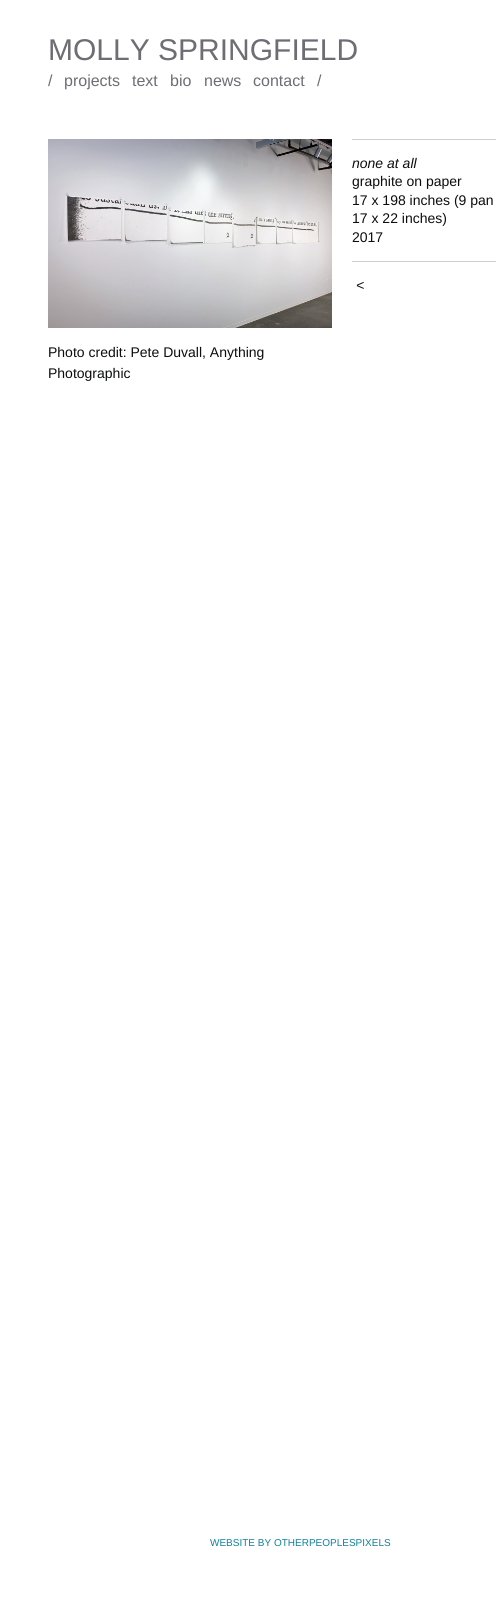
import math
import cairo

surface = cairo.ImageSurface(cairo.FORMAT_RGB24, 496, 1600)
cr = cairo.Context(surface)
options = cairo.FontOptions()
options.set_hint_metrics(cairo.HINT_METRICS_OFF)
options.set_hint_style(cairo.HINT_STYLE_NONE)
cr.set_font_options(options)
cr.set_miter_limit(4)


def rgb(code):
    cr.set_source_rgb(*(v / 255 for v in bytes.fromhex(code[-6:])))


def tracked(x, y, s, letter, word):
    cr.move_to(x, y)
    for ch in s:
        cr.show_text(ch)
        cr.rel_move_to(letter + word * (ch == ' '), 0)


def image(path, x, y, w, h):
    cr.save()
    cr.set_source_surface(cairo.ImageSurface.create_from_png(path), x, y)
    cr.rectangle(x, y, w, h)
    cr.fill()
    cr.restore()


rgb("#ffffff")
cr.paint()
image("img/1.png", 48, 139, 284, 189)
rgb("#cecfcf")
cr.rectangle(352, 139, 144, 1)
cr.fill()
cr.rectangle(352, 261, 144, 1)
cr.fill()
cr.select_font_face("Liberation Sans")
cr.set_font_size(30)
rgb("#6d6d74")
cr.move_to(48, 60)
cr.show_text("MOLLY SPRINGFIELD")
cr.set_font_size(16)
for x, y, s in [
    (48, 86, "/"),
    (64, 86, "projects"),
    (132, 86, "text"),
    (170, 86, "bio"),
    (204, 86, "news"),
    (253, 86, "contact"),
    (317, 86, "/"),
]:
    cr.move_to(x, y)
    cr.show_text(s)
cr.select_font_face("Liberation Sans", cairo.FONT_SLANT_ITALIC)
cr.set_font_size(14)
rgb("#0c0d0d")
cr.move_to(352, 168)
cr.show_text("none at all")
cr.select_font_face("Liberation Sans")
for x, y, s in [
    (352, 186, "graphite on paper"),
    (352, 205, "17 x 198 inches (9 pan"),
    (352, 223, "17 x 22 inches)"),
    (352, 242, "2017"),
]:
    cr.move_to(x, y)
    cr.show_text(s)
cr.select_font_face("Liberation Sans", cairo.FONT_SLANT_ITALIC)
tracked(356, 290, "<", 1, 0)
cr.select_font_face("Liberation Sans")
cr.move_to(48, 357)
cr.show_text("Photo credit: Pete Duvall, Anything")
cr.move_to(48, 378)
cr.show_text("Photographic")
cr.set_font_size(10)
rgb("#0d819b")
cr.move_to(210, 1546)
cr.show_text("WEBSITE BY OTHERPEOPLESPIXELS")
surface.write_to_png("page.png")
